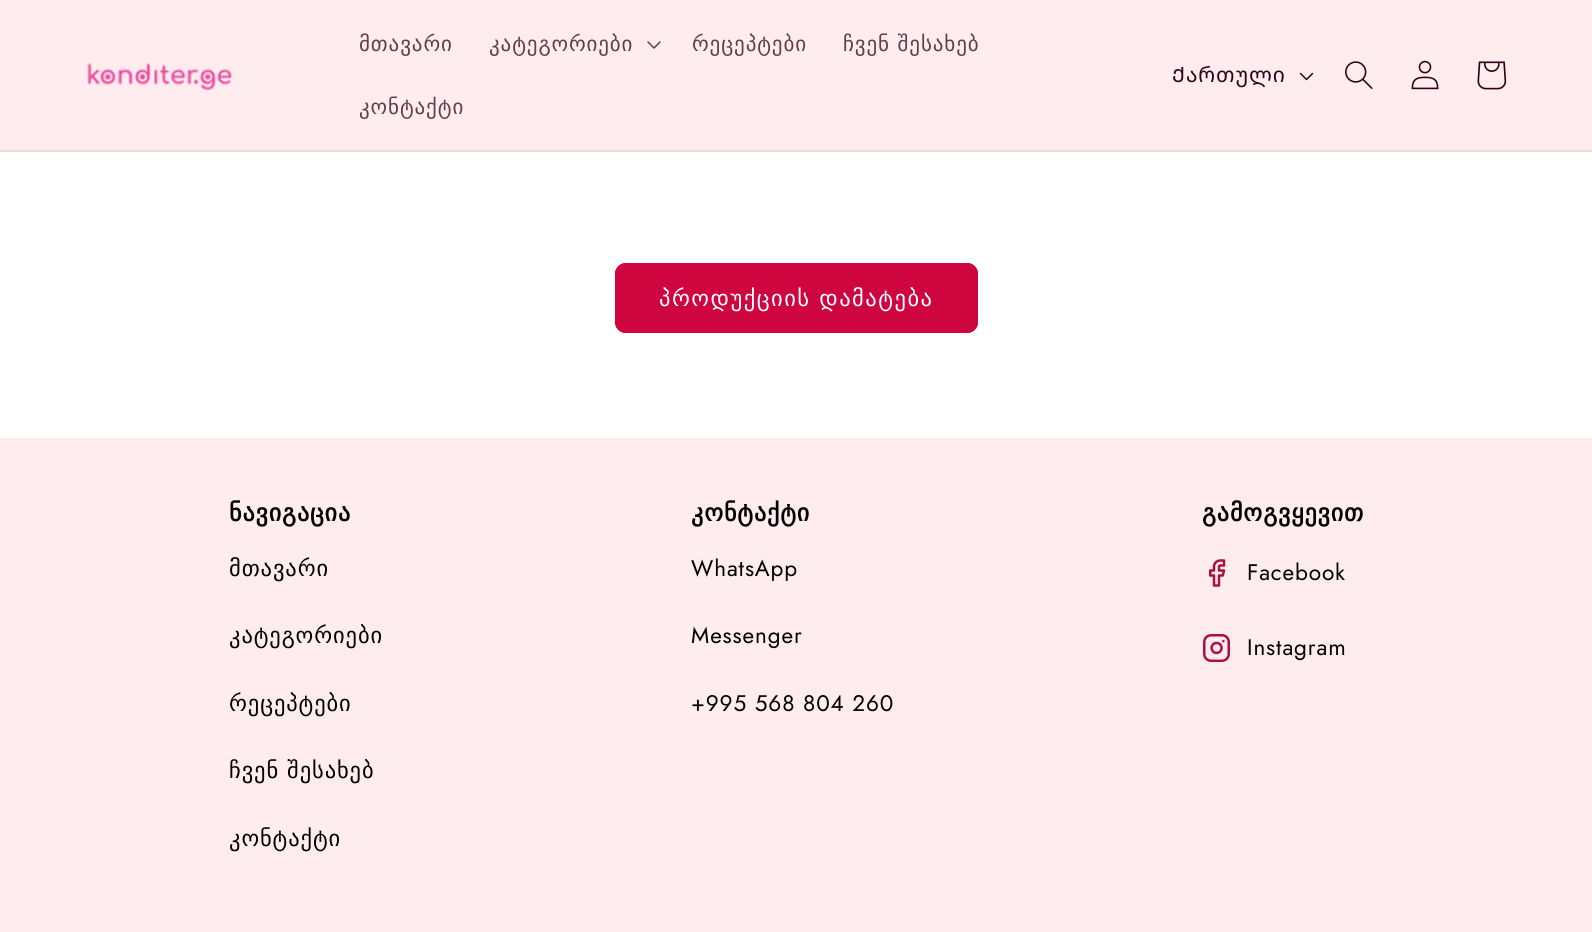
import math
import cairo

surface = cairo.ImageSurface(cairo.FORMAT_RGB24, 1592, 932)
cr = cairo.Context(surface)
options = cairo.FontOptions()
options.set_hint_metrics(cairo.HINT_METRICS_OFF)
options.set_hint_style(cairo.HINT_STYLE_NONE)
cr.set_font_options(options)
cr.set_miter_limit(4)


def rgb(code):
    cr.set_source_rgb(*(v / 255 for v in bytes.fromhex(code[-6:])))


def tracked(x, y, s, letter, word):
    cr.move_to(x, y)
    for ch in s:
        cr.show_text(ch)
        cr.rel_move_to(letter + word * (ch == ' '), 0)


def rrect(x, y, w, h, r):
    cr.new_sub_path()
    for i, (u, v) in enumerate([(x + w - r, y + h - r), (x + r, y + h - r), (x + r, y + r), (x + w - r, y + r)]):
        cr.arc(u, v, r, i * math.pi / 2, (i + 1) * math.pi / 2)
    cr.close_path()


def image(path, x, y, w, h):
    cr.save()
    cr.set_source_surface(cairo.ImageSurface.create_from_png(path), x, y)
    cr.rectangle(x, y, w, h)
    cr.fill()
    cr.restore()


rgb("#ffffff")
cr.paint()
rgb("#ffecee")
cr.rectangle(0, 0, 1592, 150)
cr.fill()
rgb("#eed9dd")
cr.rectangle(0, 150, 1592, 2)
cr.fill()
image("img/1.png", 87, 63, 146, 28)
image("img/2.png", 647, 41, 14, 8)
image("img/3.png", 1299, 72, 15, 9)
image("img/4.png", 1345, 61, 28, 28)
image("img/5.png", 1411, 60, 28, 30)
image("img/6.png", 1477, 61, 30, 29)
rgb("#cf0540")
rrect(615, 263, 363, 70, 11)
cr.fill()
rrect(616, 264, 361, 68, 10)
cr.stroke()
rgb("#ffecee")
cr.rectangle(0, 438, 1592, 494)
cr.fill()
image("img/7.png", 1209, 559, 17, 28)
image("img/8.png", 1203, 634, 27, 28)
cr.select_font_face("DejaVu Sans")
cr.set_font_size(21)
rgb("#623b4d")
for x, y, s in [
    (359, 51, "მთავარი"),
    (489, 51, "კატეგორიები"),
    (692, 51, "რეცეპტები"),
    (843, 51, "ჩვენ შესახებ"),
    (359, 114, "კონტაქტი"),
]:
    tracked(x, y, s, 0.9, 0)
cr.select_font_face("Noto Sans Georgian")
rgb("#2e0017")
tracked(1172, 82, "Ქართული", 0.9, 0)
cr.select_font_face("DejaVu Sans")
cr.set_font_size(22.5)
rgb("#ffffff")
tracked(659, 306, "პროდუქციის დამატება", 1.5, 0)
cr.select_font_face("DejaVu Sans", cairo.FONT_SLANT_NORMAL, cairo.FONT_WEIGHT_BOLD)
cr.set_font_size(24)
rgb("#000000")
tracked(229, 521, "ნავიგაცია", 0.9, 0)
cr.select_font_face("DejaVu Sans")
cr.set_font_size(22.5)
for x, y, s in [
    (229, 576, "მთავარი"),
    (229, 643, "კატეგორიები"),
    (229, 711, "რეცეპტები"),
    (229, 778, "ჩვენ შესახებ"),
    (229, 846, "კონტაქტი"),
]:
    tracked(x, y, s, 0.9, 0)
cr.select_font_face("DejaVu Sans", cairo.FONT_SLANT_NORMAL, cairo.FONT_WEIGHT_BOLD)
cr.set_font_size(24)
tracked(691, 521, "კონტაქტი", 0.9, 0)
cr.select_font_face("Jost")
cr.set_font_size(22.5)
for x, y, s in [
    (691, 576, "WhatsApp"),
    (691, 643, "Messenger"),
    (691, 711, "+995 568 804 260"),
]:
    tracked(x, y, s, 0.9, 0)
cr.select_font_face("DejaVu Sans", cairo.FONT_SLANT_NORMAL, cairo.FONT_WEIGHT_BOLD)
cr.set_font_size(24)
tracked(1202, 521, "გამოგვყევით", 0.9, 0)
cr.select_font_face("Jost")
cr.set_font_size(22.5)
tracked(1247, 580, "Facebook", 0.9, 0)
tracked(1247, 655, "Instagram", 0.9, 0)
surface.write_to_png("page.png")
